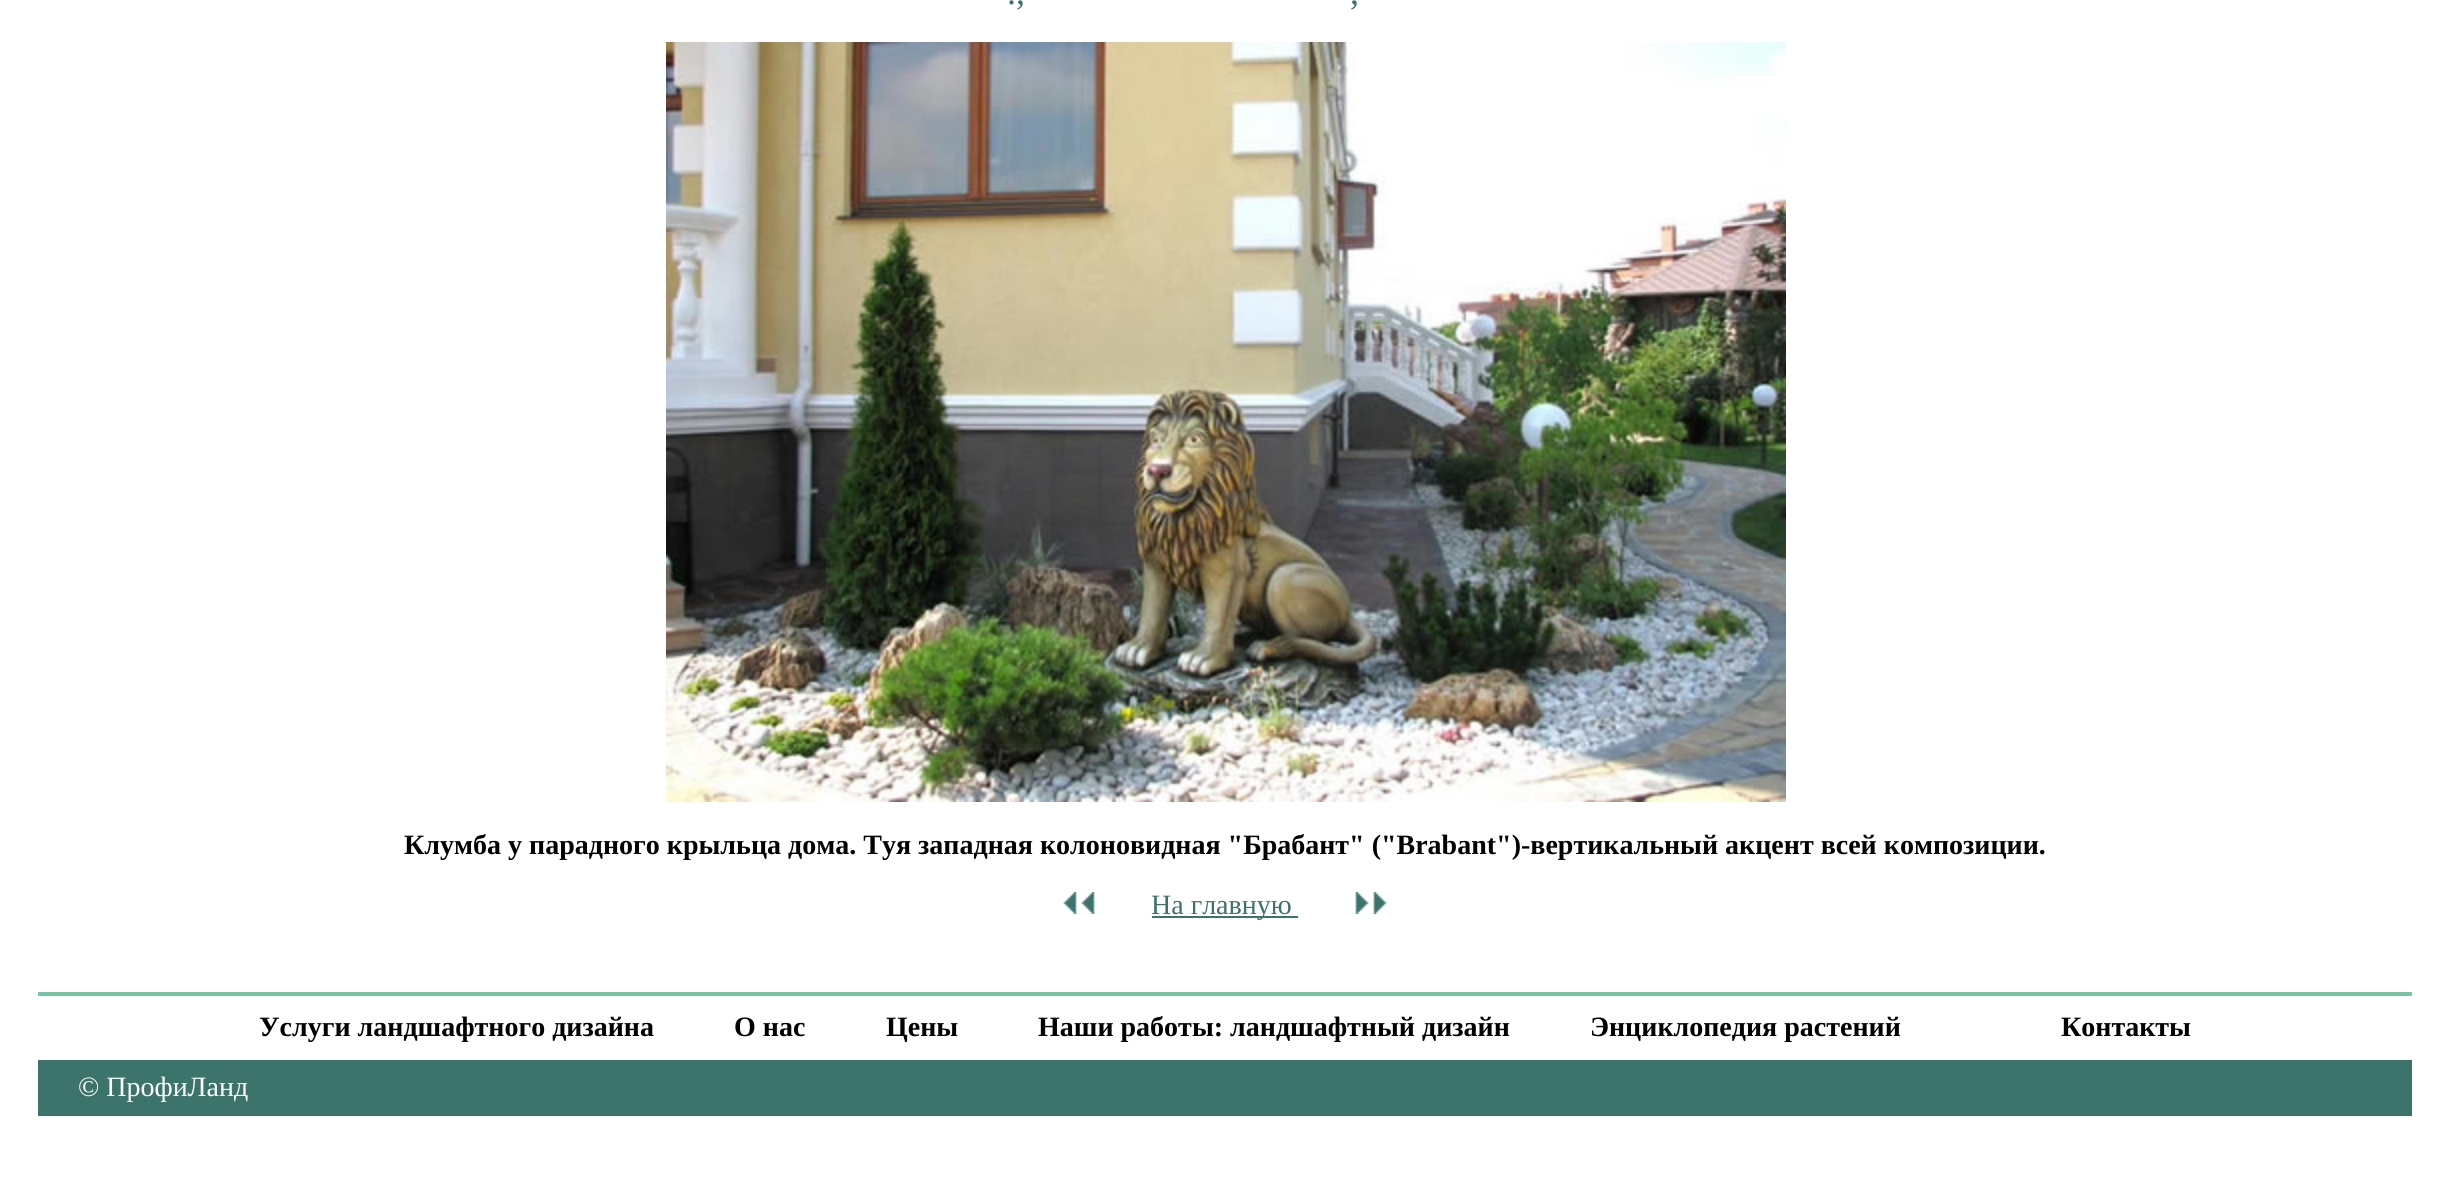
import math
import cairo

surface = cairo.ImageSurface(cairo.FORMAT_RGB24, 2449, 1197)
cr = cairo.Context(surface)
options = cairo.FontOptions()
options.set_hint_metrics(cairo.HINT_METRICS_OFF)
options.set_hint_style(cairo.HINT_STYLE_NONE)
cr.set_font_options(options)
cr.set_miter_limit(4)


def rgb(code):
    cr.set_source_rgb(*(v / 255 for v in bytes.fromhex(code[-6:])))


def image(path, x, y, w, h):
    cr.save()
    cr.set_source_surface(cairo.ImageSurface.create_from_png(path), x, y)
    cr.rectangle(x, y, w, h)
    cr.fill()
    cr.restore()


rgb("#ffffff")
cr.paint()
image("img/1.png", 666, 42, 1120, 760)
image("img/2.png", 1063, 892, 32, 22)
rgb("#3c746b")
cr.rectangle(1152, 916, 146, 2)
cr.fill()
image("img/3.png", 1355, 892, 32, 22)
rgb("#79c4a3")
cr.rectangle(38, 992, 2374, 4)
cr.fill()
rgb("#3c746b")
cr.rectangle(38, 1060, 2374, 56)
cr.fill()
cr.select_font_face("Liberation Serif")
cr.set_font_size(36)
rgb("#3d726a")
cr.move_to(1007, 4)
cr.show_text(".,")
cr.move_to(1350, 4)
cr.show_text(",")
cr.select_font_face("Liberation Serif", cairo.FONT_SLANT_NORMAL, cairo.FONT_WEIGHT_BOLD)
cr.set_font_size(28)
rgb("#000000")
cr.move_to(404, 854)
cr.show_text("Клумба у парадного крыльца дома. Туя западная колоновидная \"Брабант\" (\"Brabant\")-вертикальный акцент всей композиции.")
cr.select_font_face("Liberation Serif")
rgb("#3d726a")
cr.move_to(1151, 914)
cr.show_text("На главную")
cr.select_font_face("Liberation Serif", cairo.FONT_SLANT_NORMAL, cairo.FONT_WEIGHT_BOLD)
rgb("#000000")
for x, y, s in [
    (259, 1036, "Услуги ландшафтного дизайна"),
    (734, 1036, "О нас"),
    (886, 1036, "Цены"),
    (1038, 1036, "Наши работы: ландшафтный дизайн"),
    (1590, 1036, "Энциклопедия растений"),
    (2061, 1036, "Контакты"),
]:
    cr.move_to(x, y)
    cr.show_text(s)
cr.select_font_face("Liberation Serif")
rgb("#ffffff")
cr.move_to(78, 1096)
cr.show_text("© ПрофиЛанд")
surface.write_to_png("page.png")
